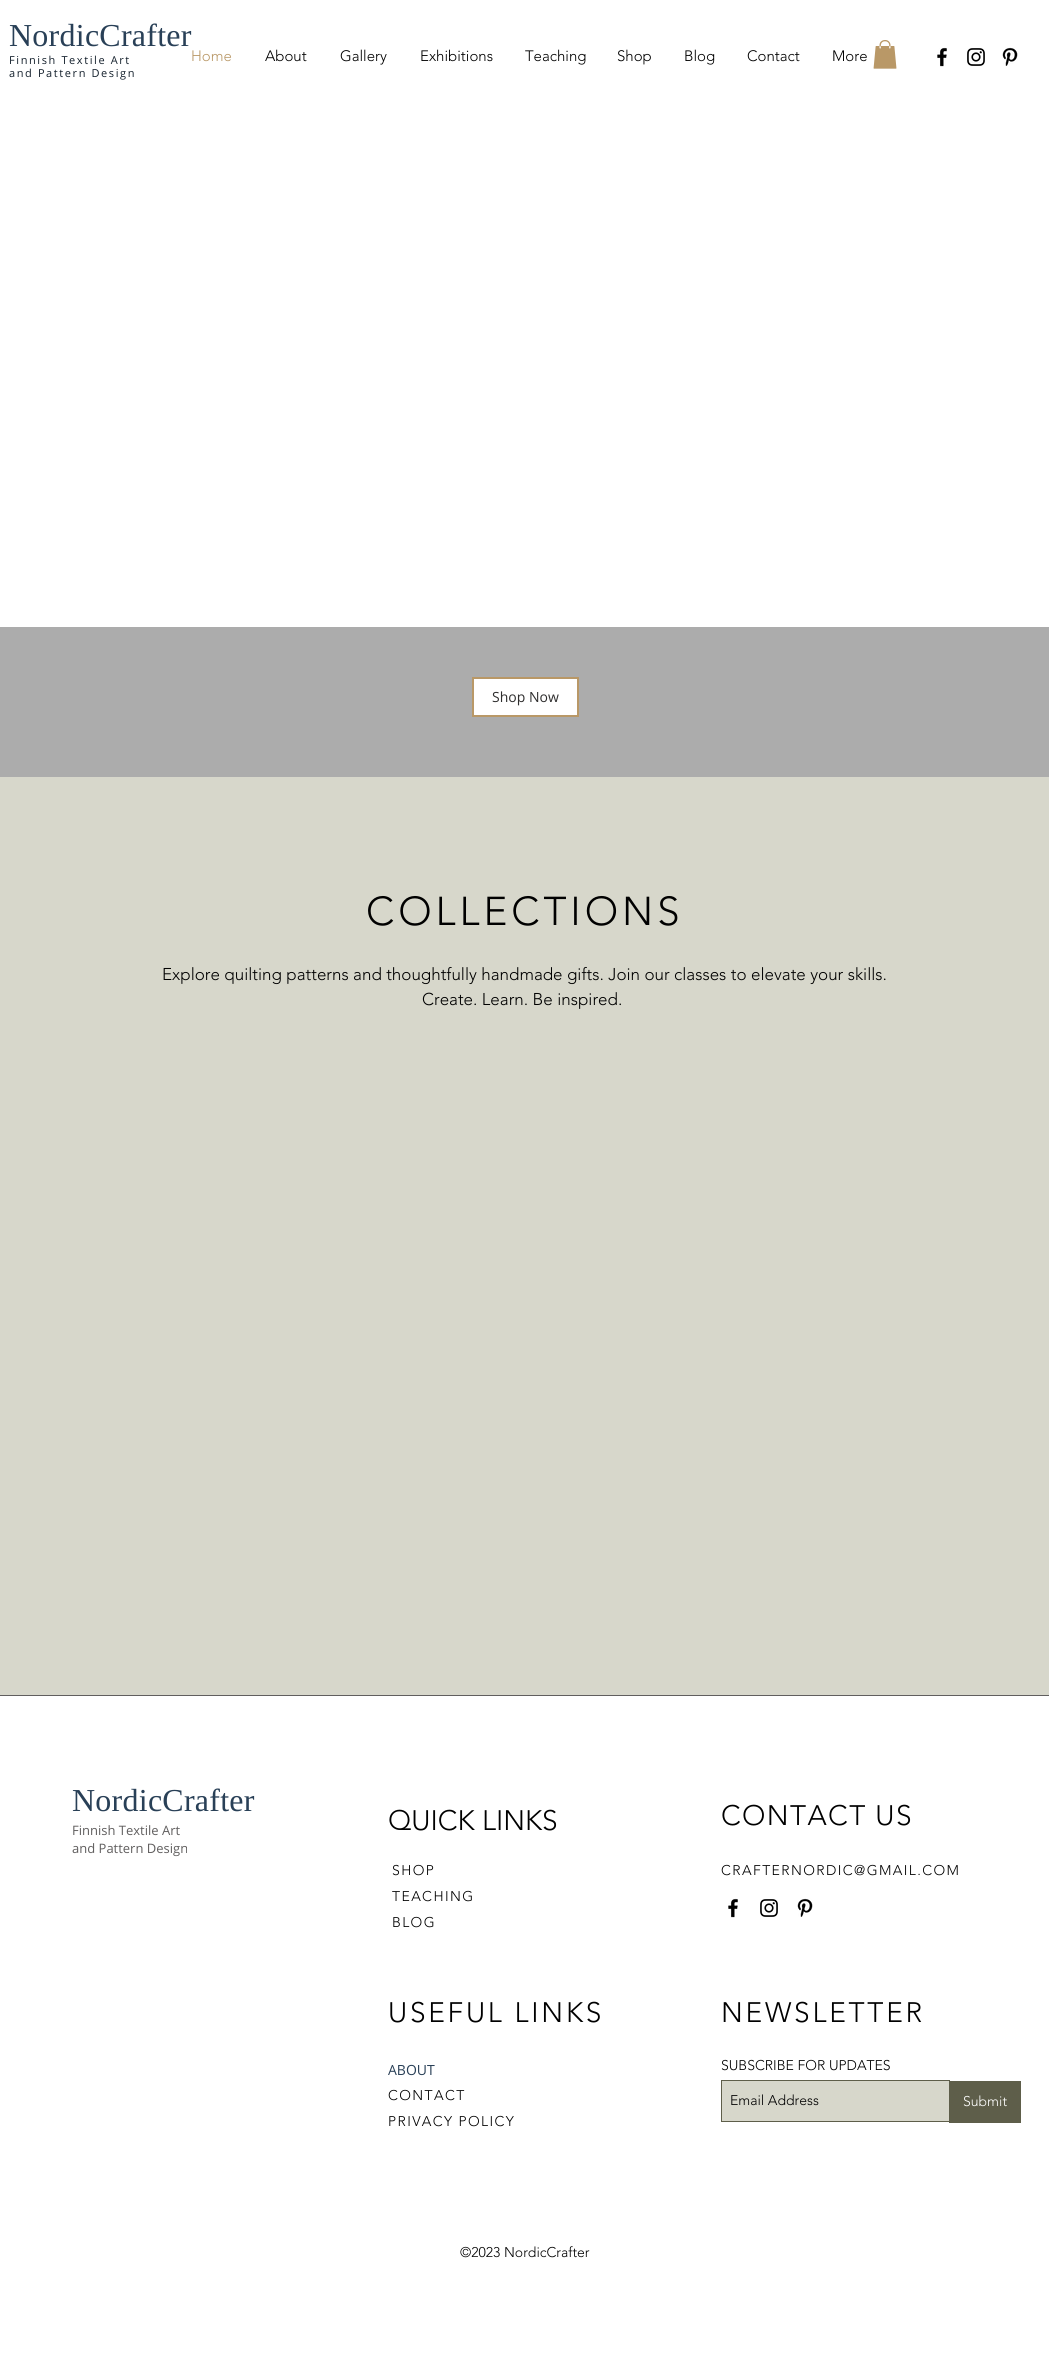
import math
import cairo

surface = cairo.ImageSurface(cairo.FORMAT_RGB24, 1049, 2364)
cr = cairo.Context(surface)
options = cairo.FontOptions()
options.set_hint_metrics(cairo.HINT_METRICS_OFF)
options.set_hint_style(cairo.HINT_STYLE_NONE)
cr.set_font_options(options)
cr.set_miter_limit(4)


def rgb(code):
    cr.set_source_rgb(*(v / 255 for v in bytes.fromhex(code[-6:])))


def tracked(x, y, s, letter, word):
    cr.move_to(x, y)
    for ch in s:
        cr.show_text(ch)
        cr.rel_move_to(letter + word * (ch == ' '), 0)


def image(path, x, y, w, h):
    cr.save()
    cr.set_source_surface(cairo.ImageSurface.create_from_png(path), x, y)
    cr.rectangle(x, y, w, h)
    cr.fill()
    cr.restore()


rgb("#ffffff")
cr.paint()
image("img/1.png", 873, 40, 24, 29)
image("img/2.png", 937, 47, 10, 20)
image("img/3.png", 967, 48, 18, 18)
image("img/4.png", 1002, 47, 16, 19)
rgb("#acacac")
cr.rectangle(0, 627, 1049, 150)
cr.fill()
rgb("#ffffff")
cr.rectangle(473, 678, 105, 38)
cr.fill_preserve()
rgb("#b99867")
cr.stroke()
rgb("#d7d7cb")
cr.rectangle(0, 777, 1049, 918)
cr.fill()
rgb("#605e5e")
cr.rectangle(0, 1695, 1049, 1)
cr.fill()
image("img/2.png", 728, 1898, 10, 20)
image("img/3.png", 760, 1899, 18, 18)
image("img/4.png", 797, 1898, 16, 19)
rgb("#d7d7cb")
cr.rectangle(721.5, 2080.5, 228, 41)
cr.fill_preserve()
rgb("#5e5e4a")
cr.set_line_width(1)
cr.stroke()
cr.rectangle(949, 2081, 72, 42)
cr.fill()
cr.select_font_face("Liberation Serif")
cr.set_font_size(32)
rgb("#294057")
tracked(9, 46, "NordicCrafter", 0.25, 0)
cr.select_font_face("Open Sans")
cr.set_font_size(11)
rgb("#14202c")
tracked(9, 64, "Finnish Textile Art", 1.6, 0)
tracked(9, 77, "and Pattern Design", 1.6, 0)
cr.select_font_face("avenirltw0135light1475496 Light")
cr.set_font_size(15)
rgb("#b99867")
cr.move_to(191, 61)
cr.show_text("Home")
rgb("#000000")
for x, y, s in [
    (265, 61, "About"),
    (340, 61, "Gallery"),
    (420, 61, "Exhibitions"),
    (525, 61, "Teaching"),
    (617, 61, "Shop"),
    (684, 61, "Blog"),
    (747, 61, "Contact"),
    (832, 61, "More"),
]:
    cr.move_to(x, y)
    cr.show_text(s)
cr.select_font_face("Open Sans")
cr.set_font_size(14)
rgb("#2f2e2e")
cr.move_to(492, 702)
cr.show_text("Shop Now")
cr.select_font_face("avenirltw0135light1475496 Light")
cr.set_font_size(40)
rgb("#000000")
tracked(366, 925, "COLLECTIONS", 4, 0)
cr.set_font_size(17)
cr.move_to(162, 980)
cr.show_text("Explore quilting patterns and thoughtfully handmade gifts. Join our classes to elevate your skills.")
cr.move_to(422, 1005)
cr.show_text("Create. Learn. Be inspired.")
cr.select_font_face("Liberation Serif")
cr.set_font_size(32)
rgb("#294057")
tracked(72, 1811, "NordicCrafter", 0.25, 0)
cr.select_font_face("Open Sans")
cr.set_font_size(13)
rgb("#605e5e")
cr.move_to(72, 1835)
cr.show_text("Finnish Textile Art")
cr.move_to(72, 1853)
cr.show_text("and Pattern Design")
cr.select_font_face("avenirltw0135light1475496 Light")
cr.set_font_size(28)
rgb("#000000")
cr.move_to(388, 1830)
cr.show_text("QUICK LINKS")
cr.set_font_size(14)
for x, y, s in [
    (392, 1875, "SHOP"),
    (392, 1901, "TEACHING"),
    (392, 1927, "BLOG"),
]:
    tracked(x, y, s, 1.4, 0)
cr.set_font_size(28)
tracked(388, 2022, "USEFUL LINKS", 2.75, 0)
cr.select_font_face("Open Sans")
cr.set_font_size(14)
rgb("#294057")
cr.move_to(388, 2075)
cr.show_text("ABOUT")
cr.select_font_face("avenirltw0135light1475496 Light")
rgb("#000000")
tracked(388, 2100, "CONTACT", 1.4, 0)
tracked(388, 2126, "PRIVACY POLICY", 1.4, 0)
cr.set_font_size(28)
tracked(721, 1825, "CONTACT US", 1.4, 0)
cr.set_font_size(14)
tracked(721, 1875, "CRAFTERNORDIC@GMAIL.COM", 1.4, 0)
cr.set_font_size(28)
tracked(721, 2022, "NEWSLETTER", 2.75, 0)
cr.set_font_size(14)
cr.move_to(721, 2070)
cr.show_text("SUBSCRIBE FOR UPDATES")
cr.move_to(730, 2105)
cr.show_text("Email Address")
rgb("#ffffff")
cr.move_to(963, 2106)
cr.show_text("Submit")
rgb("#000000")
cr.move_to(460, 2257)
cr.show_text("©2023 NordicCrafter")
surface.write_to_png("page.png")
